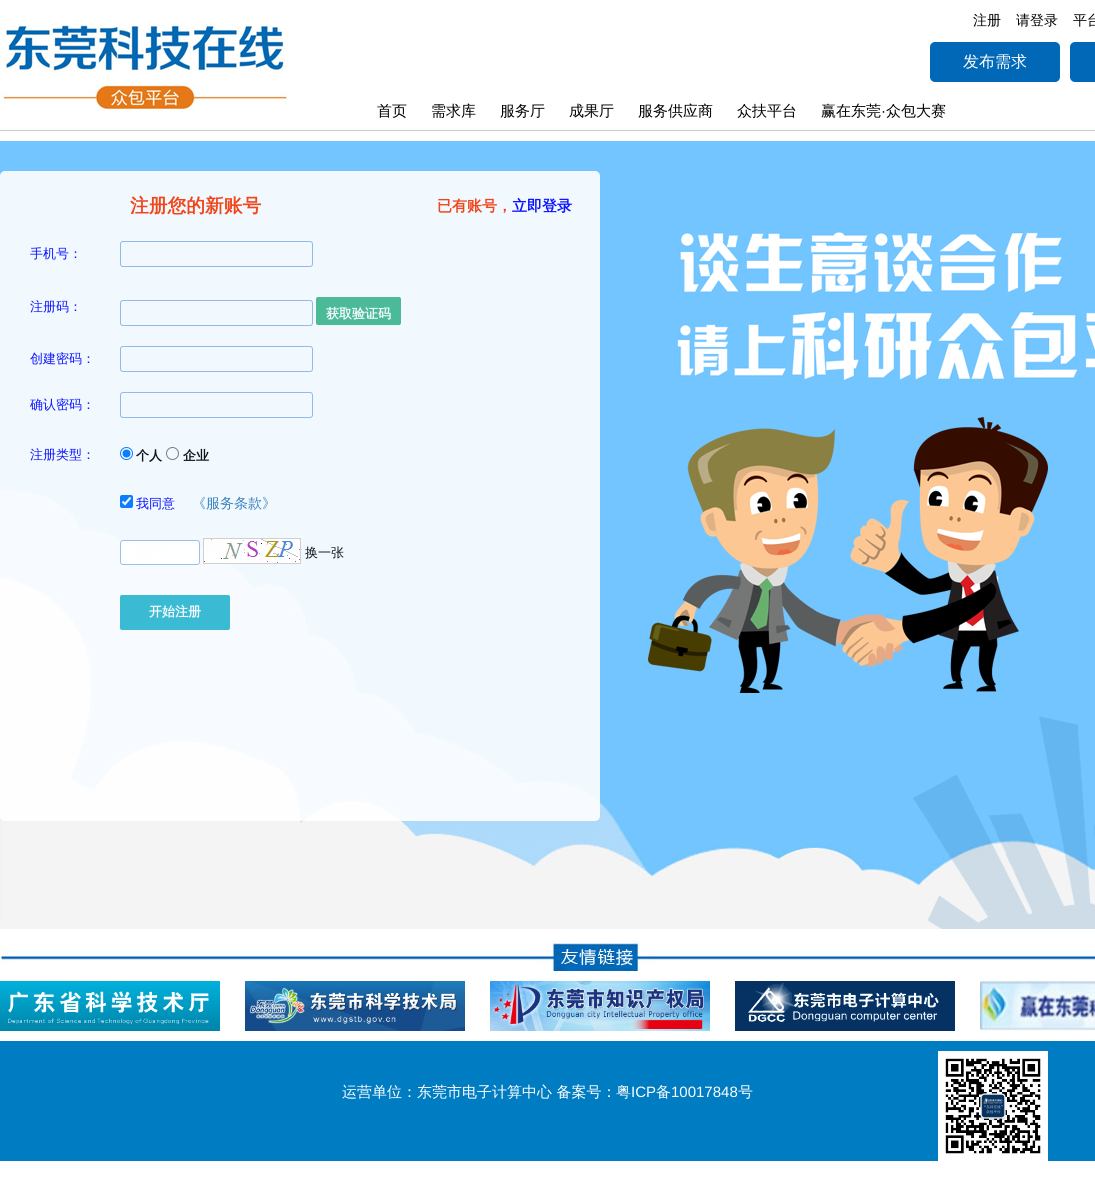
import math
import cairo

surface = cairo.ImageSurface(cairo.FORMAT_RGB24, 1095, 1182)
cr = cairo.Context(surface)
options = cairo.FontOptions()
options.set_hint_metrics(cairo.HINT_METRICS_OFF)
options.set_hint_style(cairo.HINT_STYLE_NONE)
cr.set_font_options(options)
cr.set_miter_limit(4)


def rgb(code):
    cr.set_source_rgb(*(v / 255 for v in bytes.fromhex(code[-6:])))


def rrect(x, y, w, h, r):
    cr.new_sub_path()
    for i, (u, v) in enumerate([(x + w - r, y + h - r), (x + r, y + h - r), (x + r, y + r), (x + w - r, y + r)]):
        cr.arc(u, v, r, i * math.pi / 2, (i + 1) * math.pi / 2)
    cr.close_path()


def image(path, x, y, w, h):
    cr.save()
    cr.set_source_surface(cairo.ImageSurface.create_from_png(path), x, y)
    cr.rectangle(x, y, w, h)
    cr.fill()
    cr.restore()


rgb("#ffffff")
cr.paint()
rgb("#cccccc")
cr.rectangle(0, 130, 1095, 1)
cr.fill()
image("img/1.png", 0, 24, 288, 87)
rgb("#0168b7")
rrect(930, 42, 130, 40, 5)
cr.fill()
rrect(1070, 42, 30, 40, 5)
cr.fill()
image("img/2.png", 0, 141, 1095, 788)
cr.set_source_rgba(1, 1, 1, 0.9)
rrect(0, 171, 600, 650, 5)
cr.fill()
rrect(120.5, 241.5, 192, 25, 2.5)
rgb("#92b9e9")
cr.set_line_width(1)
cr.stroke()
rrect(120.5, 300.5, 192, 25, 2.5)
cr.stroke()
rgb("#4bba96")
rrect(316, 297, 85, 28, 2)
cr.fill()
rrect(120.5, 346.5, 192, 25, 2.5)
rgb("#92b9e9")
cr.stroke()
rrect(120.5, 392.5, 192, 25, 2.5)
cr.stroke()
cr.arc(126.5, 453.5, 6, 0, 2 * math.pi)
rgb("#0c7dff")
cr.stroke()
cr.arc(126.5, 453.5, 4, 0, 2 * math.pi)
cr.fill()
cr.arc(172.5, 453.5, 6, 0, 2 * math.pi)
rgb("#767e84")
cr.stroke()
rgb("#0c7dff")
rrect(120, 495, 13, 13, 2)
cr.fill()
cr.new_path()
cr.move_to(122.5, 501.5)
cr.line_to(125, 504)
cr.line_to(130.5, 497.5)
rgb("#f1f9ff")
cr.set_line_width(2.1)
cr.stroke()
cr.rectangle(203.5, 538.5, 97, 25)
cr.set_source_rgba(0.8, 0.8, 0.8, 0.9)
cr.set_line_width(1)
cr.stroke()
cr.set_source_rgba(1, 1, 1, 0.9)
rrect(120, 540, 80, 25, 3)
cr.fill()
rrect(120.5, 540.5, 79, 24, 2.5)
cr.set_source_rgba(0.584, 0.722, 0.906, 0.9)
cr.stroke()
image("img/3.png", 204, 539, 96, 24)
rgb("#3abad3")
rrect(120, 595, 110, 35, 2)
cr.fill()
image("img/4.png", 677, 231, 418, 150)
image("img/5.png", 648, 417, 400, 276)
image("img/6.png", 0, 941, 1095, 30)
image("img/7.png", 0, 981, 220, 50)
image("img/8.png", 245, 981, 220, 50)
image("img/9.png", 490, 981, 220, 50)
image("img/10.png", 735, 981, 220, 50)
image("img/11.png", 980, 981, 115, 50)
rgb("#007cc2")
cr.rectangle(0, 1041, 1095, 120)
cr.fill()
image("img/12.png", 938, 1051, 110, 110)
cr.select_font_face("WenQuanYi Zen Hei Medium")
cr.set_font_size(14)
rgb("#000000")
for x, y, s in [
    (973, 25, "注册"),
    (1016, 25, "请登录"),
    (1073, 25, "平台"),
]:
    cr.move_to(x, y)
    cr.show_text(s)
cr.set_font_size(16)
rgb("#ffffff")
cr.move_to(963, 67)
cr.show_text("发布需求")
cr.set_font_size(15)
rgb("#000000")
for x, y, s in [
    (377, 116, "首页"),
    (431, 116, "需求库"),
    (500, 116, "服务厅"),
    (569, 116, "成果厅"),
    (638, 116, "服务供应商"),
    (737, 116, "众扶平台"),
    (821, 116, "赢在东莞"),
]:
    cr.move_to(x, y)
    cr.show_text(s)
cr.select_font_face("Liberation Sans")
cr.move_to(881, 116)
cr.show_text("·")
cr.select_font_face("WenQuanYi Zen Hei Medium")
cr.move_to(886, 116)
cr.show_text("众包大赛")
cr.select_font_face("WenQuanYi Zen Hei", cairo.FONT_SLANT_NORMAL, cairo.FONT_WEIGHT_BOLD)
cr.set_font_size(18.75)
rgb("#f1451a")
cr.move_to(130, 212)
cr.show_text("注册您的新账号")
cr.set_font_size(15)
cr.move_to(437, 211)
cr.show_text("已有账号，")
rgb("#0c14ff")
cr.move_to(512, 211)
cr.show_text("立即登录")
cr.select_font_face("WenQuanYi Zen Hei Medium")
cr.set_font_size(13)
cr.move_to(30, 258)
cr.show_text("手机号：")
cr.move_to(30, 311)
cr.show_text("注册码：")
cr.select_font_face("WenQuanYi Zen Hei", cairo.FONT_SLANT_NORMAL, cairo.FONT_WEIGHT_BOLD)
rgb("#f1f9ff")
cr.move_to(326, 318)
cr.show_text("获取验证码")
cr.select_font_face("WenQuanYi Zen Hei Medium")
rgb("#0c14ff")
for x, y, s in [
    (30, 363, "创建密码："),
    (30, 409, "确认密码："),
    (30, 459, "注册类型："),
]:
    cr.move_to(x, y)
    cr.show_text(s)
cr.select_font_face("WenQuanYi Zen Hei", cairo.FONT_SLANT_NORMAL, cairo.FONT_WEIGHT_BOLD)
rgb("#0c141a")
cr.move_to(136, 460)
cr.show_text("个人")
cr.move_to(183, 460)
cr.show_text("企业")
cr.select_font_face("WenQuanYi Zen Hei Medium")
rgb("#0c14ff")
cr.move_to(136, 508)
cr.show_text("我同意")
cr.set_font_size(14)
rgb("#3982be")
cr.move_to(192, 508)
cr.show_text("《服务条款》")
cr.set_font_size(13)
rgb("#0c141a")
cr.move_to(305, 557)
cr.show_text("换一张")
cr.select_font_face("WenQuanYi Zen Hei", cairo.FONT_SLANT_NORMAL, cairo.FONT_WEIGHT_BOLD)
rgb("#f7fbff")
cr.move_to(149, 616)
cr.show_text("开始注册")
cr.select_font_face("WenQuanYi Zen Hei Medium")
cr.set_font_size(15)
rgb("#ffffff")
cr.move_to(342, 1097)
cr.show_text("运营单位：东莞市电子计算中心 备案号：")
cr.move_to(616, 1097)
cr.show_text("粤")
cr.select_font_face("Liberation Sans")
cr.move_to(631, 1097)
cr.show_text("ICP")
cr.select_font_face("WenQuanYi Zen Hei Medium")
cr.move_to(656, 1097)
cr.show_text("备")
cr.select_font_face("Liberation Sans")
cr.move_to(671, 1097)
cr.show_text("10017848")
cr.select_font_face("WenQuanYi Zen Hei Medium")
cr.move_to(738, 1097)
cr.show_text("号")
surface.write_to_png("page.png")
